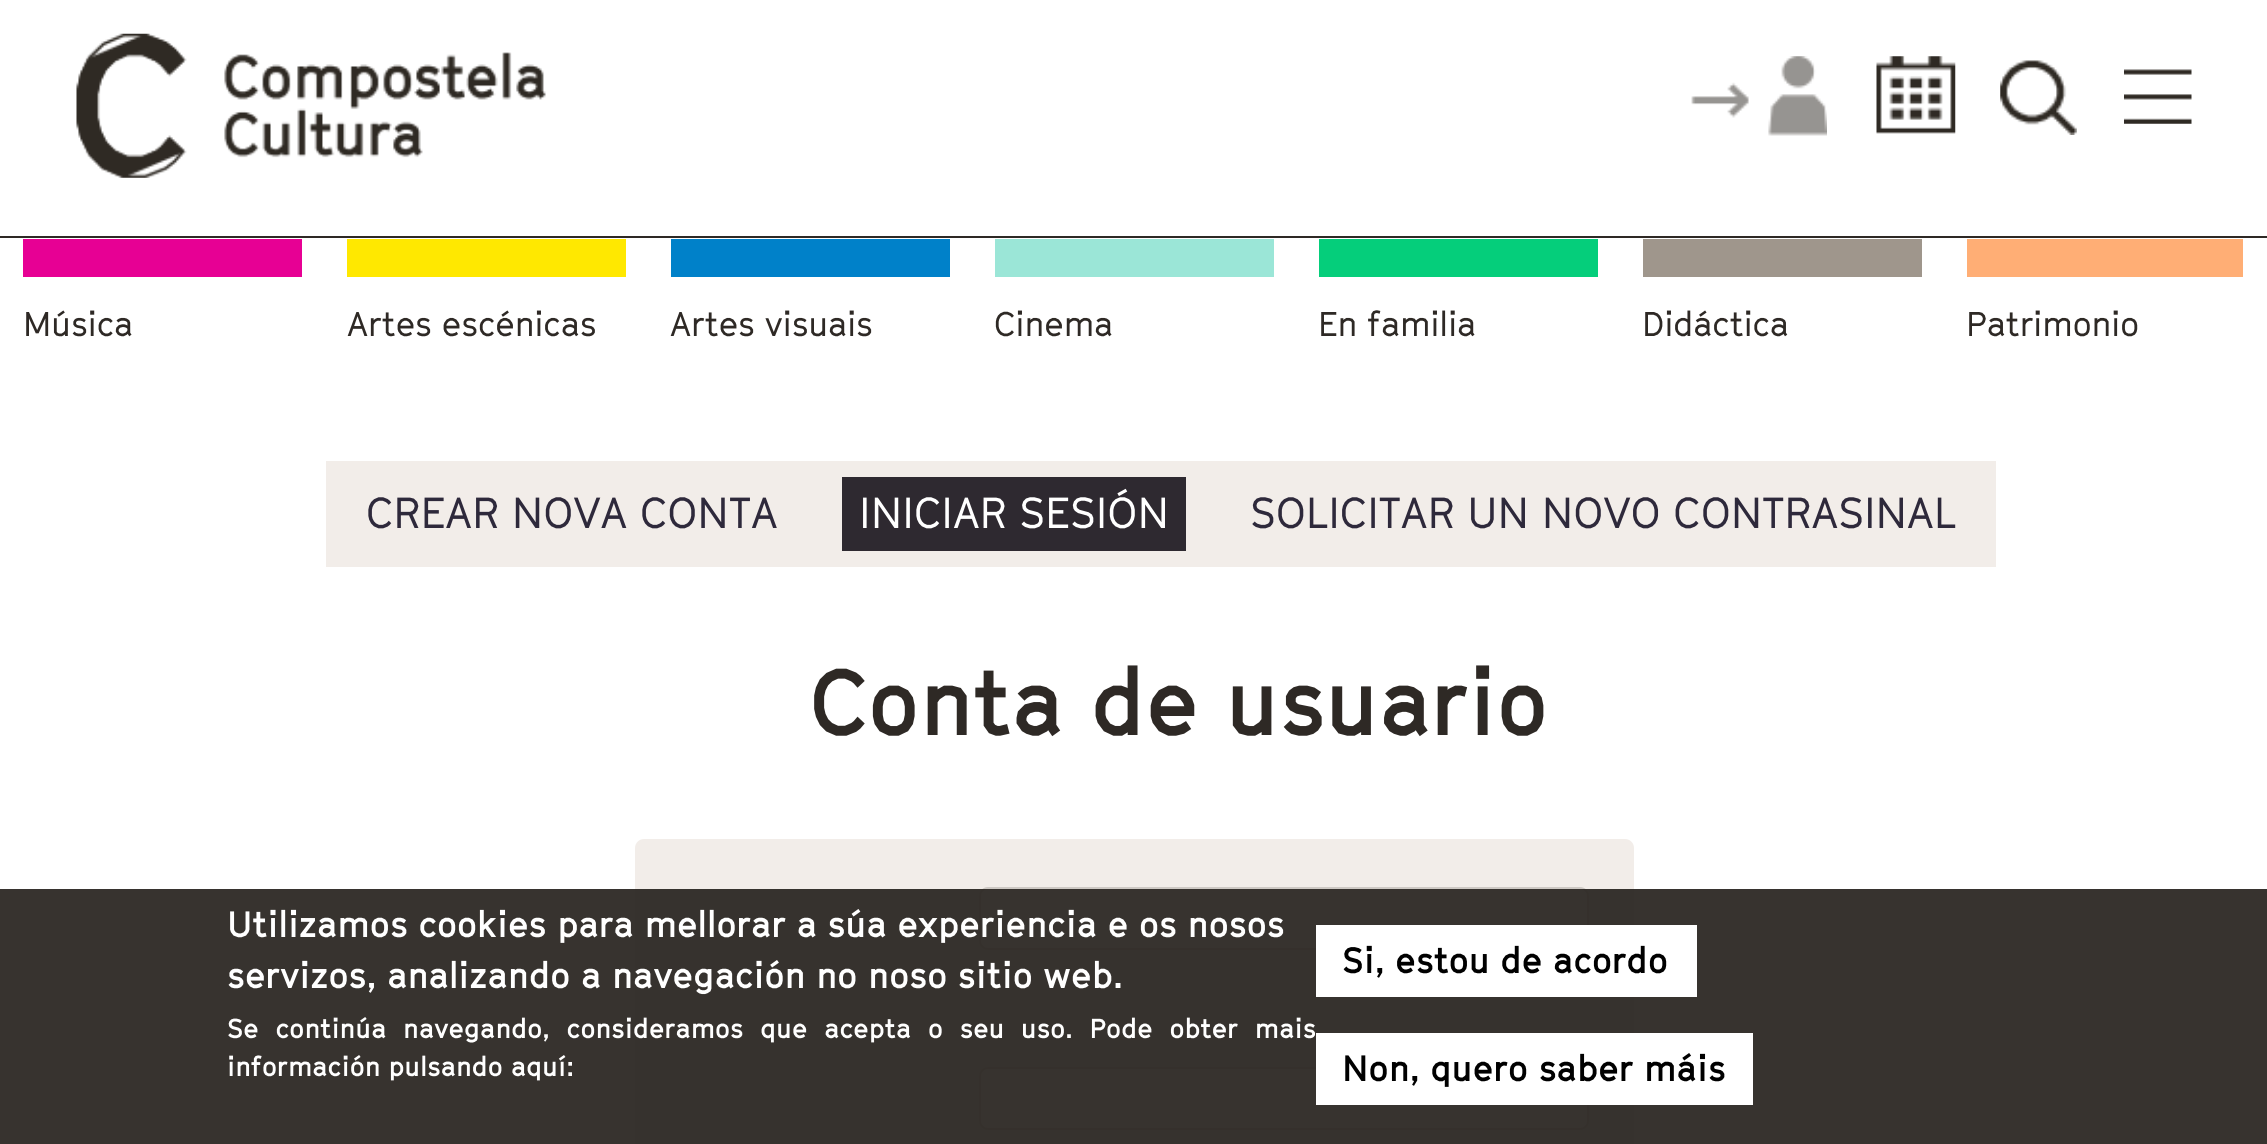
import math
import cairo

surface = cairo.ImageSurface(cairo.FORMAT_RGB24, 2267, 1144)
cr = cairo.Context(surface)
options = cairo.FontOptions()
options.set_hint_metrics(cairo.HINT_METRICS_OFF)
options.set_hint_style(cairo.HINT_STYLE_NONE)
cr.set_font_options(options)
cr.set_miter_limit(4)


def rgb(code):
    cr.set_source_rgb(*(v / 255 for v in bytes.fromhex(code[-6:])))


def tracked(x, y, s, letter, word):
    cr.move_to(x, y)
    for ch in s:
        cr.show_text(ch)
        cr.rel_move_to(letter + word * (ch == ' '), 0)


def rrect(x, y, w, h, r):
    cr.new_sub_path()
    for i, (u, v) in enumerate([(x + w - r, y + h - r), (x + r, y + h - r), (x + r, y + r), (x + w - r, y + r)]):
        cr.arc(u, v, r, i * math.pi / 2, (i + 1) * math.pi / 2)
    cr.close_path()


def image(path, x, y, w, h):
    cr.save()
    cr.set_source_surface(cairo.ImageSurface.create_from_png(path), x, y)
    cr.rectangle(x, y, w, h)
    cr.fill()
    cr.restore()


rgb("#ffffff")
cr.paint()
image("img/1.png", 76, 33, 470, 145)
image("img/2.png", 1691, 56, 136, 80)
image("img/3.png", 1876, 56, 80, 78)
image("img/4.png", 2000, 60, 77, 75)
image("img/5.png", 2124, 69, 68, 55)
for x, y, w, h, color in [
    (0, 236, 2267, 2, "#2e2925"),
    (23, 239, 279, 38, "#e70094"),
    (347, 239, 279, 38, "#ffe800"),
    (671, 239, 279, 38, "#0081c9"),
    (995, 239, 279, 38, "#9be6d7"),
    (1319, 239, 279, 38, "#05ce7b"),
    (1643, 239, 279, 38, "#9f968c"),
    (1967, 239, 276, 38, "#ffae75"),
    (326, 461, 1670, 106, "#f2ede9"),
    (842, 477, 344, 74, "#2e2930"),
]:
    rgb(color)
    cr.rectangle(x, y, w, h)
    cr.fill()
rgb("#f2ede9")
rrect(635, 839, 999, 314, 9)
cr.fill()
rgb("#ffffff")
rrect(980, 888, 608, 61, 8)
cr.fill_preserve()
rgb("#cec9c4")
cr.stroke()
rgb("#ffffff")
rrect(980, 1068, 608, 61, 8)
cr.fill_preserve()
rgb("#cec9c4")
cr.stroke()
cr.set_source_rgba(0.18, 0.161, 0.145, 0.95)
cr.rectangle(0, 889, 2267, 255)
cr.fill()
rgb("#ffffff")
cr.rectangle(1316, 925, 381, 72)
cr.rectangle(1316, 1033, 437, 72)
cr.fill()
cr.select_font_face("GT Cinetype")
cr.set_font_size(33.75)
rgb("#2e2925")
for x, y, s in [
    (23, 336, "Música"),
    (347, 336, "Artes escénicas"),
    (670, 336, "Artes visuais"),
    (994, 336, "Cinema"),
    (1318, 336, "En familia"),
    (1642, 336, "Didáctica"),
    (1966, 336, "Patrimonio"),
]:
    cr.move_to(x, y)
    cr.show_text(s)
cr.set_font_size(42.75)
rgb("#2e293b")
cr.move_to(366, 528)
cr.show_text("CREAR NOVA CONTA")
rgb("#ffffff")
cr.move_to(859, 528)
cr.show_text("INICIAR SESIÓN")
rgb("#2e293b")
cr.move_to(1250, 528)
cr.show_text("SOLICITAR UN NOVO CONTRASINAL")
cr.select_font_face("GT Cinetype", cairo.FONT_SLANT_NORMAL, cairo.FONT_WEIGHT_BOLD)
cr.set_font_size(92.25)
rgb("#2e2925")
cr.move_to(809, 735)
cr.show_text("Conta de usuario")
cr.set_font_size(36)
rgb("#ffffff")
cr.move_to(227, 937)
cr.show_text("Utilizamos cookies para mellorar a súa experiencia e os nosos")
cr.move_to(227, 988)
cr.show_text("servizos, analizando a navegación no noso sitio web.")
cr.set_font_size(27)
tracked(227, 1038, "Se continúa navegando, consideramos que acepta o seu uso. Pode obter mais", 0, 8.75)
cr.move_to(227, 1076)
cr.show_text("información pulsando aquí:")
cr.set_font_size(36)
rgb("#000000")
cr.move_to(1342, 973)
cr.show_text("Si, estou de acordo")
cr.move_to(1342, 1081)
cr.show_text("Non, quero saber máis")
surface.write_to_png("page.png")
